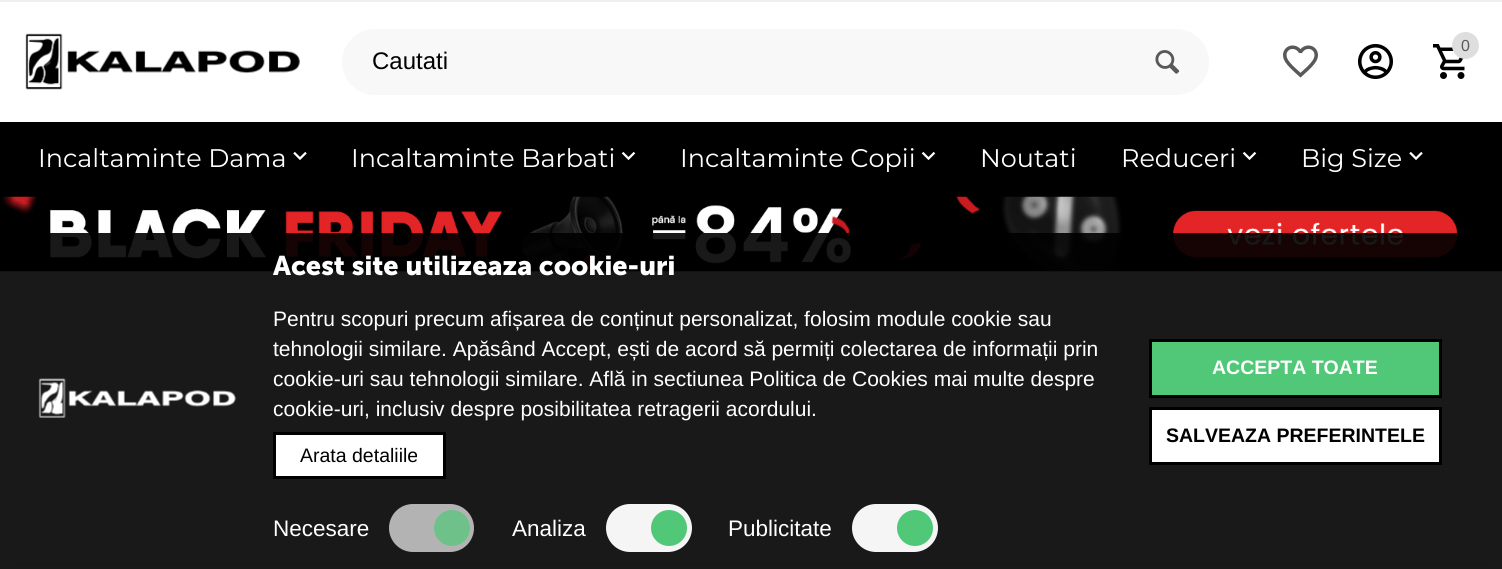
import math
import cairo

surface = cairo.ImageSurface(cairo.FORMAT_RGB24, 1502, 569)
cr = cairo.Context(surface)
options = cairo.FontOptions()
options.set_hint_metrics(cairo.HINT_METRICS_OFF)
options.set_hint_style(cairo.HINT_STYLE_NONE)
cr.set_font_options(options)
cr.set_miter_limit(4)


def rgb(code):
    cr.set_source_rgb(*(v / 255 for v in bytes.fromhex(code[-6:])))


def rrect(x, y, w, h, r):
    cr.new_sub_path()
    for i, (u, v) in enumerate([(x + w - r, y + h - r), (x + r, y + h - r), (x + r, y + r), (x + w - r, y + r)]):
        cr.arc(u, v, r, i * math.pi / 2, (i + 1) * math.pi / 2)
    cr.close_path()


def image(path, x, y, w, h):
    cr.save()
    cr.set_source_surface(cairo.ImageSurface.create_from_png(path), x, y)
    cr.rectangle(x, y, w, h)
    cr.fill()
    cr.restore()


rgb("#ffffff")
cr.paint()
rgb("#f0f0f0")
cr.rectangle(0, 0, 1502, 2)
cr.fill()
image("img/1.png", 25, 33, 275, 57)
image("img/2.png", 1283, 45, 35, 33)
image("img/3.png", 1358, 44, 35, 35)
image("img/4.png", 1433, 44, 32, 35)
rgb("#dedede")
cr.arc(1465.5, 45.5, 13.5, 0, 2 * math.pi)
cr.fill()
rgb("#f8f8f8")
rrect(342, 29, 867, 66, 33)
cr.fill()
image("img/5.png", 1155, 50, 25, 24)
rgb("#000000")
cr.rectangle(0, 122, 1502, 75)
cr.fill()
image("img/6.png", 293, 151, 14, 9)
image("img/7.png", 621, 151, 15, 10)
image("img/7.png", 921, 151, 15, 10)
image("img/7.png", 1242, 151, 15, 10)
image("img/6.png", 1409, 151, 14, 9)
image("img/8.png", 0, 196, 1502, 76)
rgb("#f0f0f0")
cr.rectangle(15, 563, 1473, 2)
cr.fill()
cr.set_source_rgba(0, 0, 0, 0.9)
cr.rectangle(0, 233, 1502, 336)
cr.fill()
image("img/9.png", 38, 378, 198, 40)
rgb("#ffffff")
cr.rectangle(274.5, 433.5, 170, 44)
cr.fill_preserve()
rgb("#000000")
cr.set_line_width(3)
cr.stroke()
cr.set_source_rgba(0.961, 0.961, 0.961, 0.7)
rrect(389, 504, 85, 48, 24)
cr.fill()
cr.set_source_rgba(0.314, 0.784, 0.471, 0.7)
cr.arc(452, 528, 18, 0, 2 * math.pi)
cr.fill()
rgb("#f5f5f5")
rrect(606, 504, 86, 48, 24)
cr.fill()
rgb("#50c878")
cr.arc(669, 528, 18, 0, 2 * math.pi)
cr.fill()
rgb("#f5f5f5")
rrect(852, 504, 86, 48, 24)
cr.fill()
rgb("#50c878")
cr.arc(915, 528, 18, 0, 2 * math.pi)
cr.fill()
cr.rectangle(1150.5, 340.5, 290, 56)
cr.fill_preserve()
rgb("#000000")
cr.stroke()
rgb("#ffffff")
cr.rectangle(1150.5, 408.5, 290, 55)
cr.fill_preserve()
rgb("#000000")
cr.stroke()
cr.select_font_face("Liberation Sans")
cr.set_font_size(16)
rgb("#595959")
cr.move_to(1461, 51)
cr.show_text("0")
cr.set_font_size(24)
rgb("#000000")
cr.move_to(372, 69)
cr.show_text("Cautati")
cr.select_font_face("Montserrat")
cr.set_font_size(25.5)
rgb("#ffffff")
for x, y, s in [
    (38, 167, "Incaltaminte Dama"),
    (351, 167, "Incaltaminte Barbati"),
    (680, 167, "Incaltaminte Copii"),
    (980, 167, "Noutati"),
    (1121, 167, "Reduceri"),
    (1301, 167, "Big Size"),
]:
    cr.move_to(x, y)
    cr.show_text(s)
cr.select_font_face("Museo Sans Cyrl", cairo.FONT_SLANT_NORMAL, cairo.FONT_WEIGHT_BOLD)
cr.set_font_size(27)
cr.move_to(273, 275)
cr.show_text("Acest site utilizeaza cookie-uri")
cr.select_font_face("Liberation Sans")
cr.set_font_size(21)
for x, y, s in [
    (273, 326, "Pentru scopuri precum afișarea de conținut personalizat, folosim module cookie sau"),
    (273, 356, "tehnologii similare. Apăsând Accept, ești de acord să permiți colectarea de informații prin"),
    (273, 386, "cookie-uri sau tehnologii similare. Află in sectiunea Politica de Cookies mai multe despre"),
    (273, 416, "cookie-uri, inclusiv despre posibilitatea retragerii acordului."),
]:
    cr.move_to(x, y)
    cr.show_text(s)
cr.set_font_size(19.5)
rgb("#000000")
cr.move_to(300, 462)
cr.show_text("Arata detaliile")
cr.set_font_size(22.5)
rgb("#ffffff")
for x, y, s in [
    (273, 536, "Necesare"),
    (512, 536, "Analiza"),
    (728, 536, "Publicitate"),
]:
    cr.move_to(x, y)
    cr.show_text(s)
cr.select_font_face("Liberation Sans", cairo.FONT_SLANT_NORMAL, cairo.FONT_WEIGHT_BOLD)
cr.set_font_size(19.5)
cr.move_to(1212, 374)
cr.show_text("ACCEPTA TOATE")
rgb("#000000")
cr.move_to(1166, 442)
cr.show_text("SALVEAZA PREFERINTELE")
surface.write_to_png("page.png")
